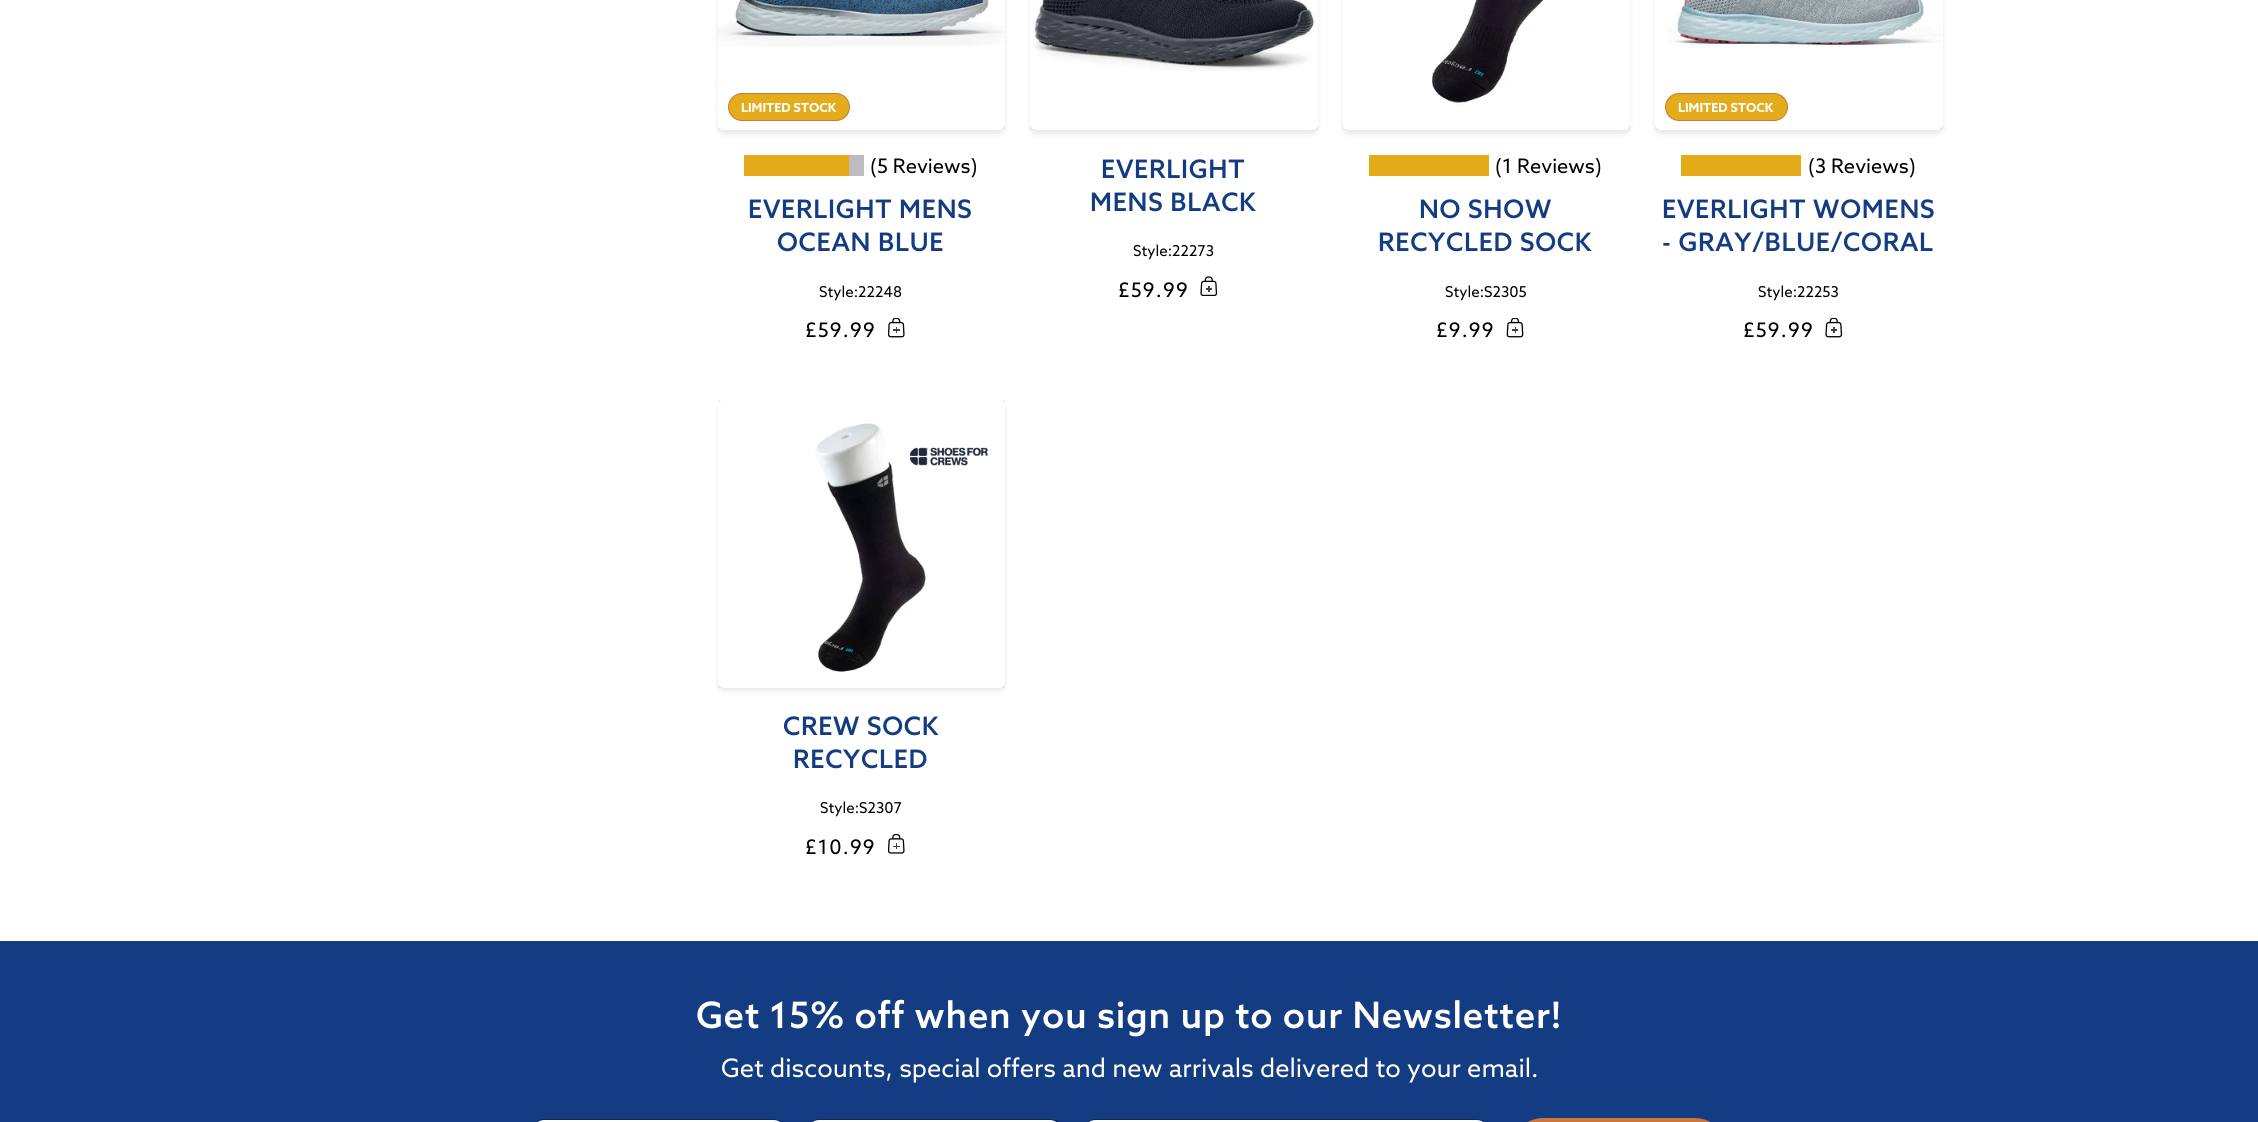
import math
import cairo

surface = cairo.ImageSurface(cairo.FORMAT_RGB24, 2258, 1122)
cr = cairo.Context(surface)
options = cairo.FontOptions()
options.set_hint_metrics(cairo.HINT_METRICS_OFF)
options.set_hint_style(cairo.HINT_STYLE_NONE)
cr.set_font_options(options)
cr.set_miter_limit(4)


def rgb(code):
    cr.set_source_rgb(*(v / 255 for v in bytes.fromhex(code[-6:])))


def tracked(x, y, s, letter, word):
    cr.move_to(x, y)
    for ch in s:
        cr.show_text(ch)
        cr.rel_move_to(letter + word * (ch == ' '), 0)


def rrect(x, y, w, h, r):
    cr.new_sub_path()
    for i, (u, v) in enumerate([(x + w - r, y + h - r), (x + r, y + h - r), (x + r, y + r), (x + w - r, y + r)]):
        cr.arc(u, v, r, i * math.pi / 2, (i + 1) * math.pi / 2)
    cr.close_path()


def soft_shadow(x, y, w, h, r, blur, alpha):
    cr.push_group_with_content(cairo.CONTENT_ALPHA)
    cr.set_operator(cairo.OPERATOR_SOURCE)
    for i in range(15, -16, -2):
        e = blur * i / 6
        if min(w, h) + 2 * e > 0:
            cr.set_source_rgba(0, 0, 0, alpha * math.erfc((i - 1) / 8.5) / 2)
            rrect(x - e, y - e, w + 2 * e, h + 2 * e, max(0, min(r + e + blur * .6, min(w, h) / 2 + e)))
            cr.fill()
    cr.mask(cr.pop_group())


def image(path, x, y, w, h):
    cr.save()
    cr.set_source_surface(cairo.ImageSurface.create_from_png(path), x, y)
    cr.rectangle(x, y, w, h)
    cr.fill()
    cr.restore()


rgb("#ffffff")
cr.paint()
rgb("#f3f3f3")
cr.rectangle(718, 124, 287, 6)
cr.fill()
rgb("#091e42")
soft_shadow(718, -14, 287, 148, 6, 2.5, 0.1)
image("img/1.png", 718, 0, 287, 130)
rgb("#e4ac1b")
rrect(728.5, 93.5, 121, 27, 13.5)
cr.fill_preserve()
rgb("#cc773c")
cr.set_line_width(1)
cr.stroke()
rgb("#e4ac1b")
cr.rectangle(744, 155, 105, 21)
cr.fill()
rgb("#bdbdc1")
cr.rectangle(849, 155, 15, 21)
cr.fill()
image("img/2.png", 887, 318, 18, 20)
rgb("#f3f3f3")
cr.rectangle(1030, 124, 288, 6)
cr.fill()
rgb("#091e42")
soft_shadow(1030, -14, 288, 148, 6, 2.5, 0.1)
rgb("#ffffff")
rrect(1030, -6, 288, 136, 6)
cr.fill()
image("img/3.png", 1033, 0, 284, 71)
image("img/4.png", 1200, 276, 18, 20)
rgb("#f3f3f3")
cr.rectangle(1343, 124, 287, 6)
cr.fill()
rgb("#091e42")
soft_shadow(1343, -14, 287, 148, 6, 2.5, 0.1)
image("img/5.png", 1343, 0, 287, 130)
rgb("#e4ac1b")
cr.rectangle(1369, 155, 120, 21)
cr.fill()
image("img/6.png", 1506, 318, 18, 20)
rgb("#f3f3f3")
cr.rectangle(1655, 124, 288, 6)
cr.fill()
rgb("#091e42")
soft_shadow(1655, -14, 288, 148, 6, 2.5, 0.1)
rgb("#ffffff")
rrect(1655, -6, 288, 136, 6)
cr.fill()
image("img/7.png", 1655, 0, 288, 130)
rgb("#e4ac1b")
rrect(1665.5, 93.5, 122, 27, 13.5)
cr.fill_preserve()
rgb("#cc773c")
cr.stroke()
rgb("#e4ac1b")
cr.rectangle(1681, 155, 120, 21)
cr.fill()
image("img/8.png", 1825, 318, 18, 20)
rgb("#f3f3f3")
cr.rectangle(718, 400, 287, 288)
cr.fill()
rgb("#091e42")
soft_shadow(718, 404, 287, 287, 6, 2.5, 0.1)
rgb("#ffffff")
rrect(718, 400, 287, 288, 6)
cr.fill()
image("img/9.png", 718, 403, 209, 282)
image("img/10.png", 909, 447, 79, 19)
image("img/11.png", 887, 834, 18, 20)
rgb("#143c82")
cr.rectangle(0, 941, 2258, 181)
cr.fill()
rgb("#ffffff")
rrect(533, 1120, 252, 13, 11)
cr.fill()
rrect(531.5, 1119.5, 254, 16, 12.5)
cr.set_source_rgba(0, 0, 0, 0.3)
cr.stroke()
rgb("#ffffff")
rrect(808, 1120, 253, 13, 11)
cr.fill()
rrect(806.5, 1119.5, 256, 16, 12.5)
cr.set_source_rgba(0, 0, 0, 0.3)
cr.stroke()
rgb("#ffffff")
rrect(1084, 1120, 404, 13, 11)
cr.fill()
rrect(1083.5, 1119.5, 405, 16, 12.5)
cr.set_source_rgba(0, 0, 0, 0.3)
cr.stroke()
rrect(1510, 1120, 218, 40, 34)
rgb("#cc773c")
cr.set_line_width(4)
cr.stroke()
cr.select_font_face("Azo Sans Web", cairo.FONT_SLANT_NORMAL, cairo.FONT_WEIGHT_BOLD)
cr.set_font_size(12.5)
rgb("#ffffff")
cr.move_to(741, 112)
cr.show_text("LIMITED STOCK")
cr.select_font_face("Azo Sans Web")
cr.set_font_size(20)
rgb("#000000")
cr.move_to(870, 173)
cr.show_text("(5 Reviews)")
cr.select_font_face("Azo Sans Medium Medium")
cr.set_font_size(25.45)
rgb("#143c82")
tracked(748, 218, "EVERLIGHT MENS", 0.75, 0)
tracked(777, 251, "OCEAN BLUE", 0.75, 0)
cr.select_font_face("Azo Sans Web")
cr.set_font_size(15)
rgb("#000000")
cr.move_to(819, 297)
cr.show_text("Style:22248")
cr.set_font_size(20)
tracked(805, 337, "£59.99", 1.25, 0)
cr.select_font_face("Azo Sans Medium Medium")
cr.set_font_size(25.45)
rgb("#143c82")
tracked(1101, 178, "EVERLIGHT", 0.75, 0)
tracked(1090, 211, "MENS BLACK", 0.75, 0)
cr.select_font_face("Azo Sans Web")
cr.set_font_size(15)
rgb("#000000")
cr.move_to(1133, 256)
cr.show_text("Style:22273")
cr.set_font_size(20)
tracked(1118, 297, "£59.99", 1.25, 0)
cr.move_to(1495, 173)
cr.show_text("(1 Reviews)")
cr.select_font_face("Azo Sans Medium Medium")
cr.set_font_size(25.45)
rgb("#143c82")
tracked(1419, 218, "NO SHOW", 0.75, 0)
tracked(1378, 251, "RECYCLED SOCK", 0.75, 0)
cr.select_font_face("Azo Sans Web")
cr.set_font_size(15)
rgb("#000000")
cr.move_to(1445, 297)
cr.show_text("Style:S2305")
cr.set_font_size(20)
tracked(1436, 337, "£9.99", 1.25, 0)
cr.select_font_face("Azo Sans Web", cairo.FONT_SLANT_NORMAL, cairo.FONT_WEIGHT_BOLD)
cr.set_font_size(12.5)
rgb("#ffffff")
cr.move_to(1678, 112)
cr.show_text("LIMITED STOCK")
cr.select_font_face("Azo Sans Web")
cr.set_font_size(20)
rgb("#000000")
cr.move_to(1808, 173)
cr.show_text("(3 Reviews)")
cr.select_font_face("Azo Sans Medium Medium")
cr.set_font_size(25.45)
rgb("#143c82")
tracked(1662, 218, "EVERLIGHT WOMENS", 0.75, 0)
tracked(1662, 251, "- GRAY/BLUE/CORAL", 0.75, 0)
cr.select_font_face("Azo Sans Web")
cr.set_font_size(15)
rgb("#000000")
cr.move_to(1758, 297)
cr.show_text("Style:22253")
cr.set_font_size(20)
tracked(1743, 337, "£59.99", 1.25, 0)
cr.select_font_face("Azo Sans Medium Medium")
cr.set_font_size(25.45)
rgb("#143c82")
tracked(783, 735, "CREW SOCK", 0.75, 0)
tracked(793, 768, "RECYCLED", 0.75, 0)
cr.select_font_face("Azo Sans Web")
cr.set_font_size(15)
rgb("#000000")
cr.move_to(820, 813)
cr.show_text("Style:S2307")
cr.set_font_size(20)
tracked(805, 854, "£10.99", 1.25, 0)
cr.select_font_face("Azo Sans Medium Medium")
cr.set_font_size(36.4)
rgb("#ffffff")
tracked(696, 1028, "Get 15% off when you sign up to our Newsletter!", 0.75, 0)
cr.select_font_face("Azo Sans Web")
cr.set_font_size(25.45)
cr.move_to(721, 1077)
cr.show_text("Get discounts, special offers and new arrivals delivered to your email.")
surface.write_to_png("page.png")
